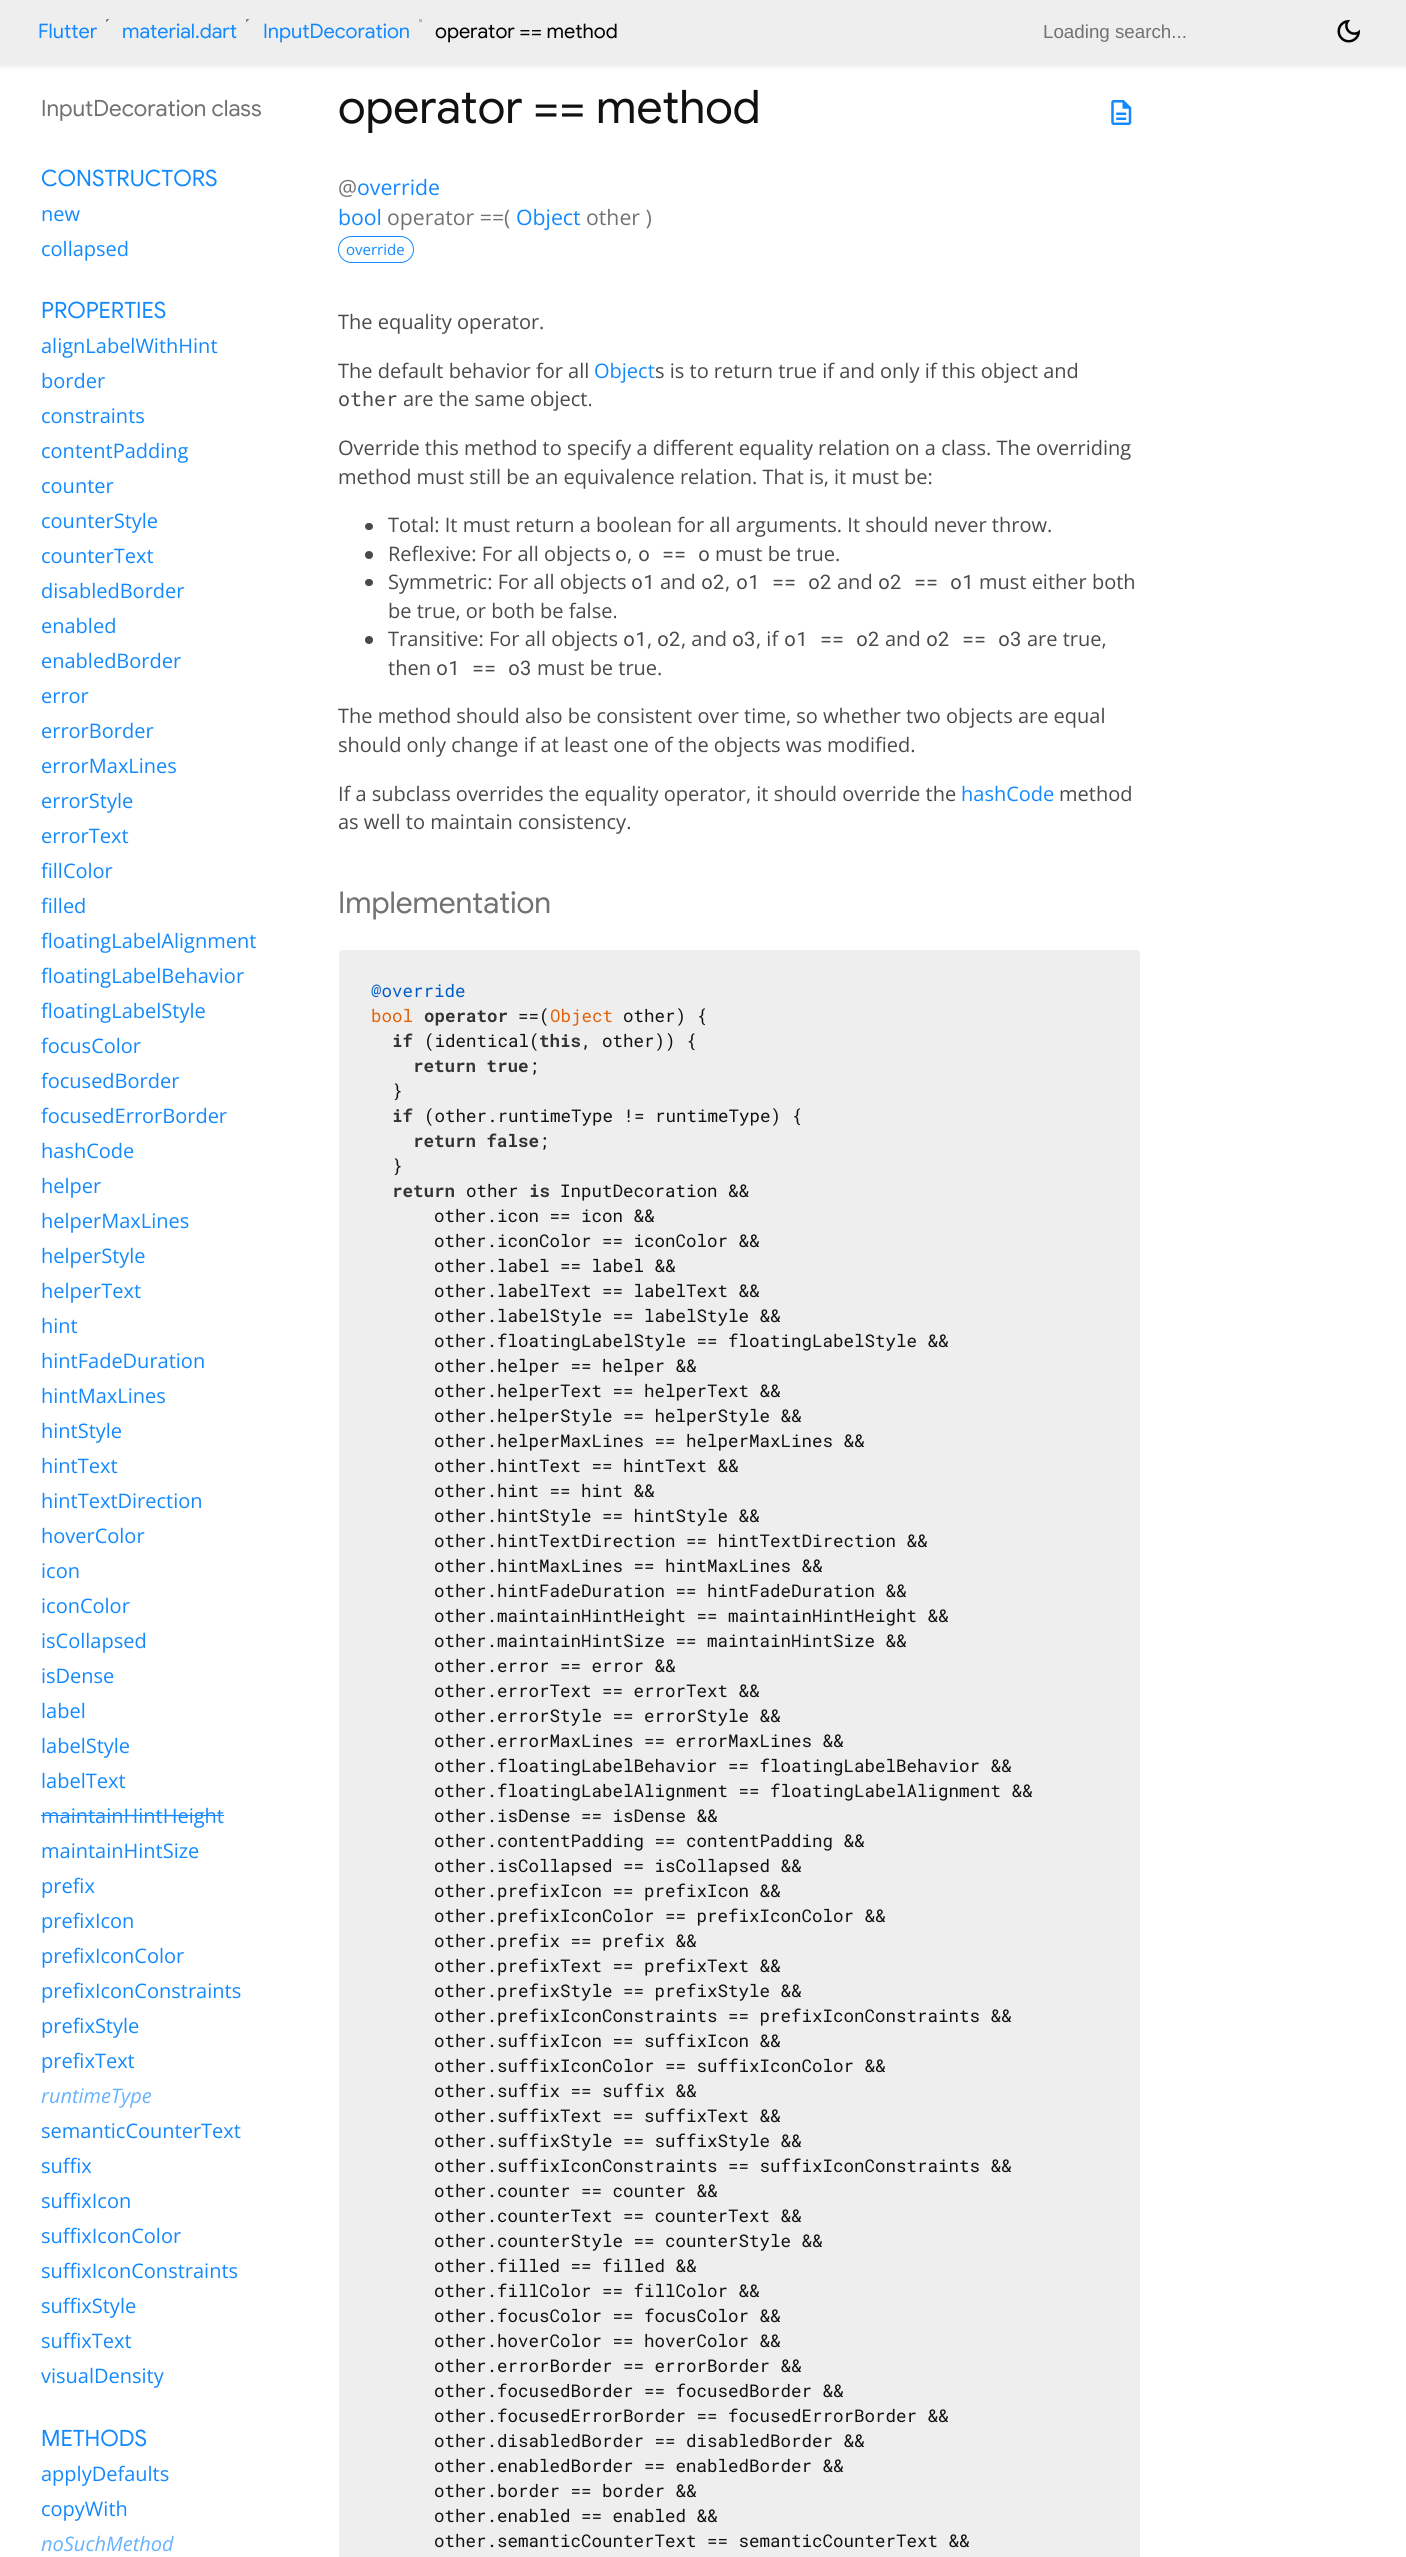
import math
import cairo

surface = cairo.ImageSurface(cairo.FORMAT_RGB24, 1406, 2557)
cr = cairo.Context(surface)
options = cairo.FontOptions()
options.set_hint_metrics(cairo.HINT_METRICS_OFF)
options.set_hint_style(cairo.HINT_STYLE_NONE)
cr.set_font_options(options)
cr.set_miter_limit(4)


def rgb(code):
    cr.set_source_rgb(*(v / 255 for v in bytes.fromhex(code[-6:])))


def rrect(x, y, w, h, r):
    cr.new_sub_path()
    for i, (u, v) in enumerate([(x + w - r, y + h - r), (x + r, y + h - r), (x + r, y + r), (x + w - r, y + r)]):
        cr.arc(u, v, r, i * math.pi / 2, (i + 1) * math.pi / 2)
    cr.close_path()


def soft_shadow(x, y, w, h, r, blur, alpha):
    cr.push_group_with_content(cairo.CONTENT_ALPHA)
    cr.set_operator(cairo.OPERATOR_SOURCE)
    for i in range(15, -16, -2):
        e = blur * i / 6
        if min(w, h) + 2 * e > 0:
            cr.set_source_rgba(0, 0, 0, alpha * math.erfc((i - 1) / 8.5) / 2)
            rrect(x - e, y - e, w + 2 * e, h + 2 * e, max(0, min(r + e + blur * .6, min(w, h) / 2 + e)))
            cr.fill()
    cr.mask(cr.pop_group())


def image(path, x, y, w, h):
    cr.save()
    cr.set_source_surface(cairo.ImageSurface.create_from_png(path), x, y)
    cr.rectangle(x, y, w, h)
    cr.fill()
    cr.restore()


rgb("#ffffff")
cr.paint()
rgb("#000000")
soft_shadow(0, 4, 1406, 62, 0, 3, 0.1)
rgb("#eeeeee")
cr.rectangle(0, 0, 1406, 63)
cr.fill()
image("img/1.png", 106, 19, 4, 4)
image("img/1.png", 246, 19, 4, 4)
rgb("#bbbbbb")
cr.rectangle(419, 19, 3, 3)
cr.fill()
image("img/2.png", 1337, 20, 23, 23)
rgb("#1389fd")
cr.rectangle(41, 1815, 183, 1)
cr.fill()
image("img/3.png", 1111, 100, 21, 25)
rrect(338.5, 236.5, 75, 26, 13)
cr.set_line_width(1)
cr.stroke()
rgb("#4a4a4a")
rrect(365, 523, 8, 7, 3.5)
cr.fill()
cr.arc(369, 555, 4, 0, 2 * math.pi)
cr.fill()
rrect(365, 579, 8, 7, 3.5)
cr.fill()
cr.arc(369, 640, 4, 0, 2 * math.pi)
cr.fill()
rgb("#eeeeee")
rrect(338.5, 949.5, 802, 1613, 4.5)
cr.fill_preserve()
rgb("#ffffff")
cr.stroke()
cr.select_font_face("Google Sans")
cr.set_font_size(20)
rgb("#1389fd")
for x, y, s in [
    (38, 38, "Flutter"),
    (122, 38, "material.dart"),
    (263, 38, "InputDecoration"),
]:
    cr.move_to(x, y)
    cr.show_text(s)
rgb("#000000")
cr.move_to(435, 38)
cr.show_text("operator == method")
cr.select_font_face("Liberation Sans")
cr.set_font_size(18.75)
rgb("#727272")
cr.move_to(1043, 38)
cr.show_text("Loading search...")
cr.select_font_face("Google Sans")
cr.set_font_size(22.5)
cr.move_to(41, 116)
cr.show_text("InputDecoration class")
rgb("#1389fd")
cr.move_to(41, 186)
cr.show_text("CONSTRUCTORS")
cr.select_font_face("Open Sans")
cr.set_font_size(20)
cr.move_to(41, 221)
cr.show_text("new")
cr.move_to(41, 256)
cr.show_text("collapsed")
cr.select_font_face("Google Sans")
cr.set_font_size(22.5)
cr.move_to(41, 318)
cr.show_text("PROPERTIES")
cr.select_font_face("Open Sans")
cr.set_font_size(20)
for x, y, s in [
    (41, 353, "alignLabelWithHint"),
    (41, 388, "border"),
    (41, 423, "constraints"),
    (41, 458, "contentPadding"),
    (41, 493, "counter"),
    (41, 528, "counterStyle"),
    (41, 563, "counterText"),
    (41, 598, "disabledBorder"),
    (41, 633, "enabled"),
    (41, 668, "enabledBorder"),
    (41, 703, "error"),
    (41, 738, "errorBorder"),
    (41, 773, "errorMaxLines"),
    (41, 808, "errorStyle"),
    (41, 843, "errorText"),
    (41, 878, "fillColor"),
    (41, 913, "filled"),
    (41, 948, "floatingLabelAlignment"),
    (41, 983, "floatingLabelBehavior"),
    (41, 1018, "floatingLabelStyle"),
    (41, 1053, "focusColor"),
    (41, 1088, "focusedBorder"),
    (41, 1123, "focusedErrorBorder"),
    (41, 1158, "hashCode"),
    (41, 1193, "helper"),
    (41, 1228, "helperMaxLines"),
    (41, 1263, "helperStyle"),
    (41, 1298, "helperText"),
    (41, 1333, "hint"),
    (41, 1368, "hintFadeDuration"),
    (41, 1403, "hintMaxLines"),
    (41, 1438, "hintStyle"),
    (41, 1473, "hintText"),
    (41, 1508, "hintTextDirection"),
    (41, 1543, "hoverColor"),
    (41, 1578, "icon"),
    (41, 1613, "iconColor"),
    (41, 1648, "isCollapsed"),
    (41, 1683, "isDense"),
    (41, 1718, "label"),
    (41, 1753, "labelStyle"),
    (41, 1788, "labelText"),
    (41, 1823, "maintainHintHeight"),
    (41, 1858, "maintainHintSize"),
    (41, 1893, "prefix"),
    (41, 1928, "prefixIcon"),
    (41, 1963, "prefixIconColor"),
    (41, 1998, "prefixIconConstraints"),
    (41, 2033, "prefixStyle"),
    (41, 2068, "prefixText"),
]:
    cr.move_to(x, y)
    cr.show_text(s)
cr.select_font_face("Open Sans", cairo.FONT_SLANT_ITALIC)
rgb("#66b2fe")
cr.move_to(41, 2103)
cr.show_text("runtimeType")
cr.select_font_face("Open Sans")
rgb("#1389fd")
for x, y, s in [
    (41, 2138, "semanticCounterText"),
    (41, 2173, "suffix"),
    (41, 2208, "suffixIcon"),
    (41, 2243, "suffixIconColor"),
    (41, 2278, "suffixIconConstraints"),
    (41, 2313, "suffixStyle"),
    (41, 2348, "suffixText"),
    (41, 2383, "visualDensity"),
]:
    cr.move_to(x, y)
    cr.show_text(s)
cr.select_font_face("Google Sans")
cr.set_font_size(22.5)
cr.move_to(41, 2446)
cr.show_text("METHODS")
cr.select_font_face("Open Sans")
cr.set_font_size(20)
cr.move_to(41, 2481)
cr.show_text("applyDefaults")
cr.move_to(41, 2516)
cr.show_text("copyWith")
cr.select_font_face("Open Sans", cairo.FONT_SLANT_ITALIC)
rgb("#66b2fe")
cr.move_to(41, 2551)
cr.show_text("noSuchMethod")
cr.select_font_face("Google Sans")
cr.set_font_size(46.25)
rgb("#111111")
cr.move_to(338, 123)
cr.show_text("operator == method")
cr.select_font_face("Open Sans")
cr.set_font_size(21.25)
rgb("#727272")
cr.move_to(338, 195)
cr.show_text("@")
rgb("#1389fd")
cr.move_to(357, 195)
cr.show_text("override")
cr.move_to(338, 225)
cr.show_text("bool")
rgb("#727272")
cr.move_to(387, 225)
cr.show_text("operator ==(")
rgb("#1389fd")
cr.move_to(516, 225)
cr.show_text("Object")
rgb("#727272")
cr.move_to(586, 225)
cr.show_text("other )")
cr.set_font_size(15)
rgb("#1389fd")
cr.move_to(346, 255)
cr.show_text("override")
cr.set_font_size(20)
rgb("#4a4a4a")
cr.move_to(338, 329)
cr.show_text("The equality operator.")
cr.move_to(338, 378)
cr.show_text("The default behavior for all")
rgb("#1389fd")
cr.move_to(594, 378)
cr.show_text("Object")
rgb("#4a4a4a")
cr.move_to(655, 378)
cr.show_text("s is to return true if and only if this object and")
cr.select_font_face("Roboto Mono")
cr.move_to(338, 406)
cr.show_text("other")
cr.select_font_face("Open Sans")
for x, y, s in [
    (403, 406, "are the same object."),
    (338, 455, "Override this method to specify a different equality relation on a class. The overriding"),
    (338, 484, "method must still be an equivalence relation. That is, it must be:"),
    (388, 532, "Total: It must return a boolean for all arguments. It should never throw."),
    (388, 561, "Reflexive: For all objects"),
]:
    cr.move_to(x, y)
    cr.show_text(s)
cr.select_font_face("Roboto Mono")
cr.move_to(615, 561)
cr.show_text("o")
cr.select_font_face("Open Sans")
cr.move_to(627, 561)
cr.show_text(",")
cr.select_font_face("Roboto Mono")
cr.move_to(638, 561)
cr.show_text("o == o")
cr.select_font_face("Open Sans")
cr.move_to(715, 561)
cr.show_text("must be true.")
cr.move_to(388, 589)
cr.show_text("Symmetric: For all objects")
cr.select_font_face("Roboto Mono")
cr.move_to(631, 589)
cr.show_text("o1")
cr.select_font_face("Open Sans")
cr.move_to(660, 589)
cr.show_text("and")
cr.select_font_face("Roboto Mono")
cr.move_to(701, 589)
cr.show_text("o2")
cr.select_font_face("Open Sans")
cr.move_to(725, 589)
cr.show_text(",")
cr.select_font_face("Roboto Mono")
cr.move_to(736, 589)
cr.show_text("o1 == o2")
cr.select_font_face("Open Sans")
cr.move_to(837, 589)
cr.show_text("and")
cr.select_font_face("Roboto Mono")
cr.move_to(878, 589)
cr.show_text("o2 == o1")
cr.select_font_face("Open Sans")
for x, y, s in [
    (979, 589, "must either both"),
    (388, 618, "be true, or both be false."),
    (388, 646, "Transitive: For all objects"),
]:
    cr.move_to(x, y)
    cr.show_text(s)
cr.select_font_face("Roboto Mono")
cr.move_to(623, 646)
cr.show_text("o1")
cr.select_font_face("Open Sans")
cr.move_to(647, 646)
cr.show_text(",")
cr.select_font_face("Roboto Mono")
cr.move_to(657, 646)
cr.show_text("o2")
cr.select_font_face("Open Sans")
cr.move_to(681, 646)
cr.show_text(", and")
cr.select_font_face("Roboto Mono")
cr.move_to(732, 646)
cr.show_text("o3")
cr.select_font_face("Open Sans")
cr.move_to(756, 646)
cr.show_text(", if")
cr.select_font_face("Roboto Mono")
cr.move_to(784, 646)
cr.show_text("o1 == o2")
cr.select_font_face("Open Sans")
cr.move_to(885, 646)
cr.show_text("and")
cr.select_font_face("Roboto Mono")
cr.move_to(926, 646)
cr.show_text("o2 == o3")
cr.select_font_face("Open Sans")
cr.move_to(1027, 646)
cr.show_text("are true,")
cr.move_to(388, 675)
cr.show_text("then")
cr.select_font_face("Roboto Mono")
cr.move_to(436, 675)
cr.show_text("o1 == o3")
cr.select_font_face("Open Sans")
for x, y, s in [
    (537, 675, "must be true."),
    (338, 723, "The method should also be consistent over time, so whether two objects are equal"),
    (338, 752, "should only change if at least one of the objects was modified."),
    (338, 801, "If a subclass overrides the equality operator, it should override the"),
]:
    cr.move_to(x, y)
    cr.show_text(s)
rgb("#1389fd")
cr.move_to(961, 801)
cr.show_text("hashCode")
rgb("#4a4a4a")
cr.move_to(1059, 801)
cr.show_text("method")
cr.move_to(338, 829)
cr.show_text("as well to maintain consistency.")
cr.select_font_face("Google Sans")
cr.set_font_size(30)
rgb("#727272")
cr.move_to(338, 913)
cr.show_text("Implementation")
cr.select_font_face("Roboto Mono")
cr.set_font_size(17.5)
rgb("#005cc5")
cr.move_to(371, 997)
cr.show_text("@override")
rgb("#e36209")
cr.move_to(371, 1022)
cr.show_text("bool")
cr.select_font_face("Roboto Mono", cairo.FONT_SLANT_NORMAL, cairo.FONT_WEIGHT_BOLD)
rgb("#333333")
cr.move_to(424, 1022)
cr.show_text("operator")
cr.select_font_face("Roboto Mono")
rgb("#111111")
cr.move_to(518, 1022)
cr.show_text("==(")
rgb("#e36209")
cr.move_to(550, 1022)
cr.show_text("Object")
rgb("#111111")
cr.move_to(623, 1022)
cr.show_text("other) {")
cr.select_font_face("Roboto Mono", cairo.FONT_SLANT_NORMAL, cairo.FONT_WEIGHT_BOLD)
rgb("#333333")
cr.move_to(392, 1047)
cr.show_text("if")
cr.select_font_face("Roboto Mono")
rgb("#111111")
cr.move_to(424, 1047)
cr.show_text("(identical(")
cr.select_font_face("Roboto Mono", cairo.FONT_SLANT_NORMAL, cairo.FONT_WEIGHT_BOLD)
rgb("#333333")
cr.move_to(539, 1047)
cr.show_text("this")
cr.select_font_face("Roboto Mono")
rgb("#111111")
cr.move_to(581, 1047)
cr.show_text(", other)) {")
cr.select_font_face("Roboto Mono", cairo.FONT_SLANT_NORMAL, cairo.FONT_WEIGHT_BOLD)
rgb("#333333")
cr.move_to(413, 1072)
cr.show_text("return true")
cr.select_font_face("Roboto Mono")
rgb("#111111")
cr.move_to(529, 1072)
cr.show_text(";")
cr.move_to(392, 1097)
cr.show_text("}")
cr.select_font_face("Roboto Mono", cairo.FONT_SLANT_NORMAL, cairo.FONT_WEIGHT_BOLD)
rgb("#333333")
cr.move_to(392, 1122)
cr.show_text("if")
cr.select_font_face("Roboto Mono")
rgb("#111111")
cr.move_to(424, 1122)
cr.show_text("(other.runtimeType != runtimeType) {")
cr.select_font_face("Roboto Mono", cairo.FONT_SLANT_NORMAL, cairo.FONT_WEIGHT_BOLD)
rgb("#333333")
cr.move_to(413, 1147)
cr.show_text("return false")
cr.select_font_face("Roboto Mono")
rgb("#111111")
cr.move_to(539, 1147)
cr.show_text(";")
cr.move_to(392, 1172)
cr.show_text("}")
cr.select_font_face("Roboto Mono", cairo.FONT_SLANT_NORMAL, cairo.FONT_WEIGHT_BOLD)
rgb("#333333")
cr.move_to(392, 1197)
cr.show_text("return")
cr.select_font_face("Roboto Mono")
rgb("#111111")
cr.move_to(466, 1197)
cr.show_text("other")
cr.select_font_face("Roboto Mono", cairo.FONT_SLANT_NORMAL, cairo.FONT_WEIGHT_BOLD)
rgb("#333333")
cr.move_to(529, 1197)
cr.show_text("is")
cr.select_font_face("Roboto Mono")
rgb("#111111")
for x, y, s in [
    (560, 1197, "InputDecoration &&"),
    (434, 1222, "other.icon == icon &&"),
    (434, 1247, "other.iconColor == iconColor &&"),
    (434, 1272, "other.label == label &&"),
    (434, 1297, "other.labelText == labelText &&"),
    (434, 1322, "other.labelStyle == labelStyle &&"),
    (434, 1347, "other.floatingLabelStyle == floatingLabelStyle &&"),
    (434, 1372, "other.helper == helper &&"),
    (434, 1397, "other.helperText == helperText &&"),
    (434, 1422, "other.helperStyle == helperStyle &&"),
    (434, 1447, "other.helperMaxLines == helperMaxLines &&"),
    (434, 1472, "other.hintText == hintText &&"),
    (434, 1497, "other.hint == hint &&"),
    (434, 1522, "other.hintStyle == hintStyle &&"),
    (434, 1547, "other.hintTextDirection == hintTextDirection &&"),
    (434, 1572, "other.hintMaxLines == hintMaxLines &&"),
    (434, 1597, "other.hintFadeDuration == hintFadeDuration &&"),
    (434, 1622, "other.maintainHintHeight == maintainHintHeight &&"),
    (434, 1647, "other.maintainHintSize == maintainHintSize &&"),
    (434, 1672, "other.error == error &&"),
    (434, 1697, "other.errorText == errorText &&"),
    (434, 1722, "other.errorStyle == errorStyle &&"),
    (434, 1747, "other.errorMaxLines == errorMaxLines &&"),
    (434, 1772, "other.floatingLabelBehavior == floatingLabelBehavior &&"),
    (434, 1797, "other.floatingLabelAlignment == floatingLabelAlignment &&"),
    (434, 1822, "other.isDense == isDense &&"),
    (434, 1847, "other.contentPadding == contentPadding &&"),
    (434, 1872, "other.isCollapsed == isCollapsed &&"),
    (434, 1897, "other.prefixIcon == prefixIcon &&"),
    (434, 1922, "other.prefixIconColor == prefixIconColor &&"),
    (434, 1947, "other.prefix == prefix &&"),
    (434, 1972, "other.prefixText == prefixText &&"),
    (434, 1997, "other.prefixStyle == prefixStyle &&"),
    (434, 2022, "other.prefixIconConstraints == prefixIconConstraints &&"),
    (434, 2047, "other.suffixIcon == suffixIcon &&"),
    (434, 2072, "other.suffixIconColor == suffixIconColor &&"),
    (434, 2097, "other.suffix == suffix &&"),
    (434, 2122, "other.suffixText == suffixText &&"),
    (434, 2147, "other.suffixStyle == suffixStyle &&"),
    (434, 2172, "other.suffixIconConstraints == suffixIconConstraints &&"),
    (434, 2197, "other.counter == counter &&"),
    (434, 2222, "other.counterText == counterText &&"),
    (434, 2247, "other.counterStyle == counterStyle &&"),
    (434, 2272, "other.filled == filled &&"),
    (434, 2297, "other.fillColor == fillColor &&"),
    (434, 2322, "other.focusColor == focusColor &&"),
    (434, 2347, "other.hoverColor == hoverColor &&"),
    (434, 2372, "other.errorBorder == errorBorder &&"),
    (434, 2397, "other.focusedBorder == focusedBorder &&"),
    (434, 2422, "other.focusedErrorBorder == focusedErrorBorder &&"),
    (434, 2447, "other.disabledBorder == disabledBorder &&"),
    (434, 2472, "other.enabledBorder == enabledBorder &&"),
    (434, 2497, "other.border == border &&"),
    (434, 2522, "other.enabled == enabled &&"),
    (434, 2547, "other.semanticCounterText == semanticCounterText &&"),
]:
    cr.move_to(x, y)
    cr.show_text(s)
surface.write_to_png("page.png")
